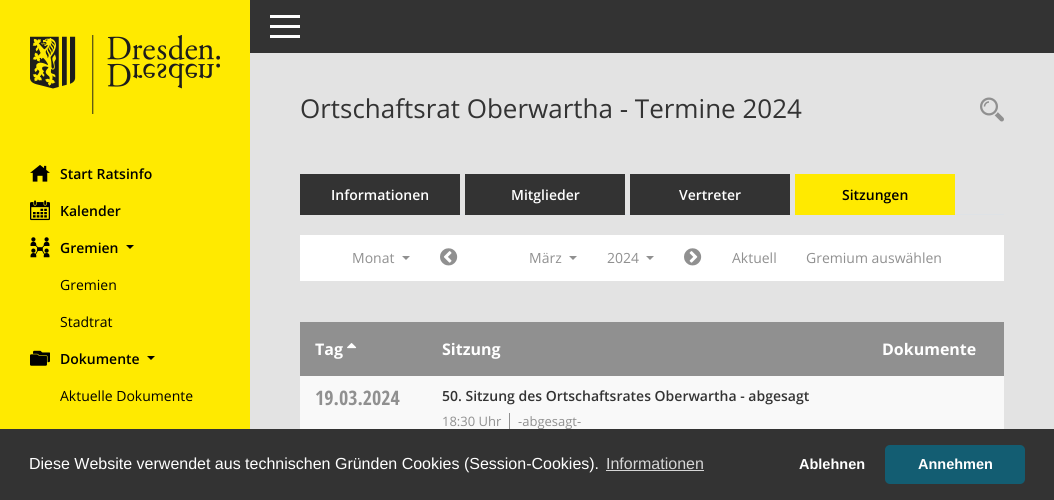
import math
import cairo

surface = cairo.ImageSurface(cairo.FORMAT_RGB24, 1054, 500)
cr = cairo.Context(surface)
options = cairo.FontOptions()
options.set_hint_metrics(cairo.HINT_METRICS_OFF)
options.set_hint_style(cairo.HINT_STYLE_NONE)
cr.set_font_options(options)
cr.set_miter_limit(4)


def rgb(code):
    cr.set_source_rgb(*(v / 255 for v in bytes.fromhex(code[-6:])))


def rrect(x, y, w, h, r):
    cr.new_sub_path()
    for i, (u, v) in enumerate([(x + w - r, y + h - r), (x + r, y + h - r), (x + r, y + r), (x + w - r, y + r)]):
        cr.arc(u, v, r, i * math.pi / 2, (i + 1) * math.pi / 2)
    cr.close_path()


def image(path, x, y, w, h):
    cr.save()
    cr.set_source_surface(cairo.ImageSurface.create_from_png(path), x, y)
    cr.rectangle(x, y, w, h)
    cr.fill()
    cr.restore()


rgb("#e3e3e3")
cr.paint()
rgb("#ffea00")
cr.rectangle(0, 0, 250, 429)
cr.fill()
image("img/1.png", 30, 35, 190, 79)
image("img/2.png", 30, 165, 20, 17)
image("img/3.png", 30, 200, 20, 21)
image("img/4.png", 30, 237, 20, 21)
rgb("#000000")
cr.new_path()
cr.move_to(126, 245)
cr.line_to(134, 245)
cr.line_to(130, 249)
cr.close_path()
cr.fill()
image("img/5.png", 30, 350, 20, 16)
cr.new_path()
cr.move_to(147, 356)
cr.line_to(155, 356)
cr.line_to(151, 360)
cr.close_path()
cr.fill()
for x, y, w, h, color in [
    (250, 0, 804, 53, "#333333"),
    (270, 15, 30, 3, "#ffffff"),
    (270, 25, 30, 3, "#ffffff"),
    (270, 35, 30, 3, "#ffffff"),
]:
    rgb(color)
    cr.rectangle(x, y, w, h)
    cr.fill()
image("img/6.png", 980, 97, 24, 25)
for x, y, w, h, color in [
    (460, 214, 544, 1, "#dee2e6"),
    (300, 174, 160, 41, "#333333"),
    (465, 174, 160, 41, "#333333"),
    (630, 174, 160, 41, "#333333"),
    (795, 174, 160, 41, "#ffea00"),
    (300, 235, 704, 46, "#ffffff"),
]:
    rgb(color)
    cr.rectangle(x, y, w, h)
    cr.fill()
rgb("#909090")
cr.new_path()
cr.move_to(402, 256)
cr.line_to(410, 256)
cr.line_to(406, 260)
cr.close_path()
cr.fill()
image("img/7.png", 440, 248, 18, 18)
cr.new_path()
cr.move_to(569, 256)
cr.line_to(577, 256)
cr.line_to(573, 260)
cr.close_path()
cr.fill()
cr.new_path()
cr.move_to(646, 256)
cr.line_to(654, 256)
cr.line_to(650, 260)
cr.close_path()
cr.fill()
image("img/8.png", 684, 248, 18, 18)
cr.rectangle(300, 322, 704, 54)
cr.fill()
image("img/9.png", 347, 343, 10, 6)
rgb("#f9f9f9")
cr.rectangle(300, 376, 704, 53)
cr.fill()
rgb("#909090")
cr.rectangle(509, 413, 1, 17)
cr.fill()
cr.select_font_face("Open Sans SemiBold")
cr.set_font_size(14)
rgb("#000000")
for x, y, s in [
    (60, 179, "Start Ratsinfo"),
    (60, 216, "Kalender"),
    (60, 253, "Gremien"),
]:
    cr.move_to(x, y)
    cr.show_text(s)
cr.select_font_face("Open Sans")
cr.move_to(60, 290)
cr.show_text("Gremien")
cr.move_to(60, 327)
cr.show_text("Stadtrat")
cr.select_font_face("Open Sans SemiBold")
cr.move_to(60, 364)
cr.show_text("Dokumente")
cr.select_font_face("Open Sans")
cr.move_to(60, 401)
cr.show_text("Aktuelle Dokumente")
cr.set_font_size(26)
rgb("#333333")
cr.move_to(300, 118)
cr.show_text("Ortschaftsrat Oberwartha - Termine 2024")
cr.select_font_face("Open Sans SemiBold")
cr.set_font_size(14)
rgb("#ffffff")
for x, y, s in [
    (331, 200, "Informationen"),
    (511, 200, "Mitglieder"),
    (679, 200, "Vertreter"),
]:
    cr.move_to(x, y)
    cr.show_text(s)
rgb("#000000")
cr.move_to(842, 200)
cr.show_text("Sitzungen")
cr.select_font_face("Open Sans")
rgb("#909090")
for x, y, s in [
    (352, 263, "Monat"),
    (529, 263, "März"),
    (607, 263, "2024"),
    (732, 263, "Aktuell"),
    (806, 263, "Gremium auswählen"),
]:
    cr.move_to(x, y)
    cr.show_text(s)
cr.select_font_face("Open Sans", cairo.FONT_SLANT_NORMAL, cairo.FONT_WEIGHT_BOLD)
cr.set_font_size(16)
rgb("#ffffff")
for x, y, s in [
    (315, 355, "Tag"),
    (442, 355, "Sitzung"),
    (882, 355, "Dokumente"),
]:
    cr.move_to(x, y)
    cr.show_text(s)
cr.select_font_face("Open Sans Condensed", cairo.FONT_SLANT_NORMAL, cairo.FONT_WEIGHT_BOLD)
cr.set_font_size(20)
rgb("#909090")
cr.move_to(315, 405)
cr.show_text("19.03.2024")
cr.select_font_face("Open Sans SemiBold")
cr.set_font_size(14)
rgb("#333333")
cr.move_to(442, 401)
cr.show_text("50. Sitzung des Ortschaftsrates Oberwartha - abgesagt")
cr.select_font_face("Open Sans")
cr.set_font_size(13)
rgb("#909090")
cr.move_to(442, 426)
cr.show_text("18:30 Uhr")
cr.move_to(518, 426)
cr.show_text("-abgesagt-")
rgb("#333333")
cr.rectangle(0, 429, 1054, 71)
cr.fill()
cr.select_font_face("Liberation Sans")
cr.set_font_size(16)
rgb("#ffffff")
cr.move_to(29, 469)
cr.show_text("Diese Website verwendet aus technischen Gründen Cookies (Session-Cookies).")
rgb("#d6d6d6")
cr.move_to(606, 469)
cr.show_text("Informationen")
cr.rectangle(606, 470, 98, 1)
cr.fill()
cr.select_font_face("Liberation Sans", cairo.FONT_SLANT_NORMAL, cairo.FONT_WEIGHT_BOLD)
cr.set_font_size(14.5)
rgb("#ffffff")
cr.move_to(799, 469)
cr.show_text("Ablehnen")
rgb("#135d72")
rrect(885, 445, 140, 39, 5)
cr.fill()
rgb("#ffffff")
cr.move_to(918, 469)
cr.show_text("Annehmen")
surface.write_to_png("page.png")
